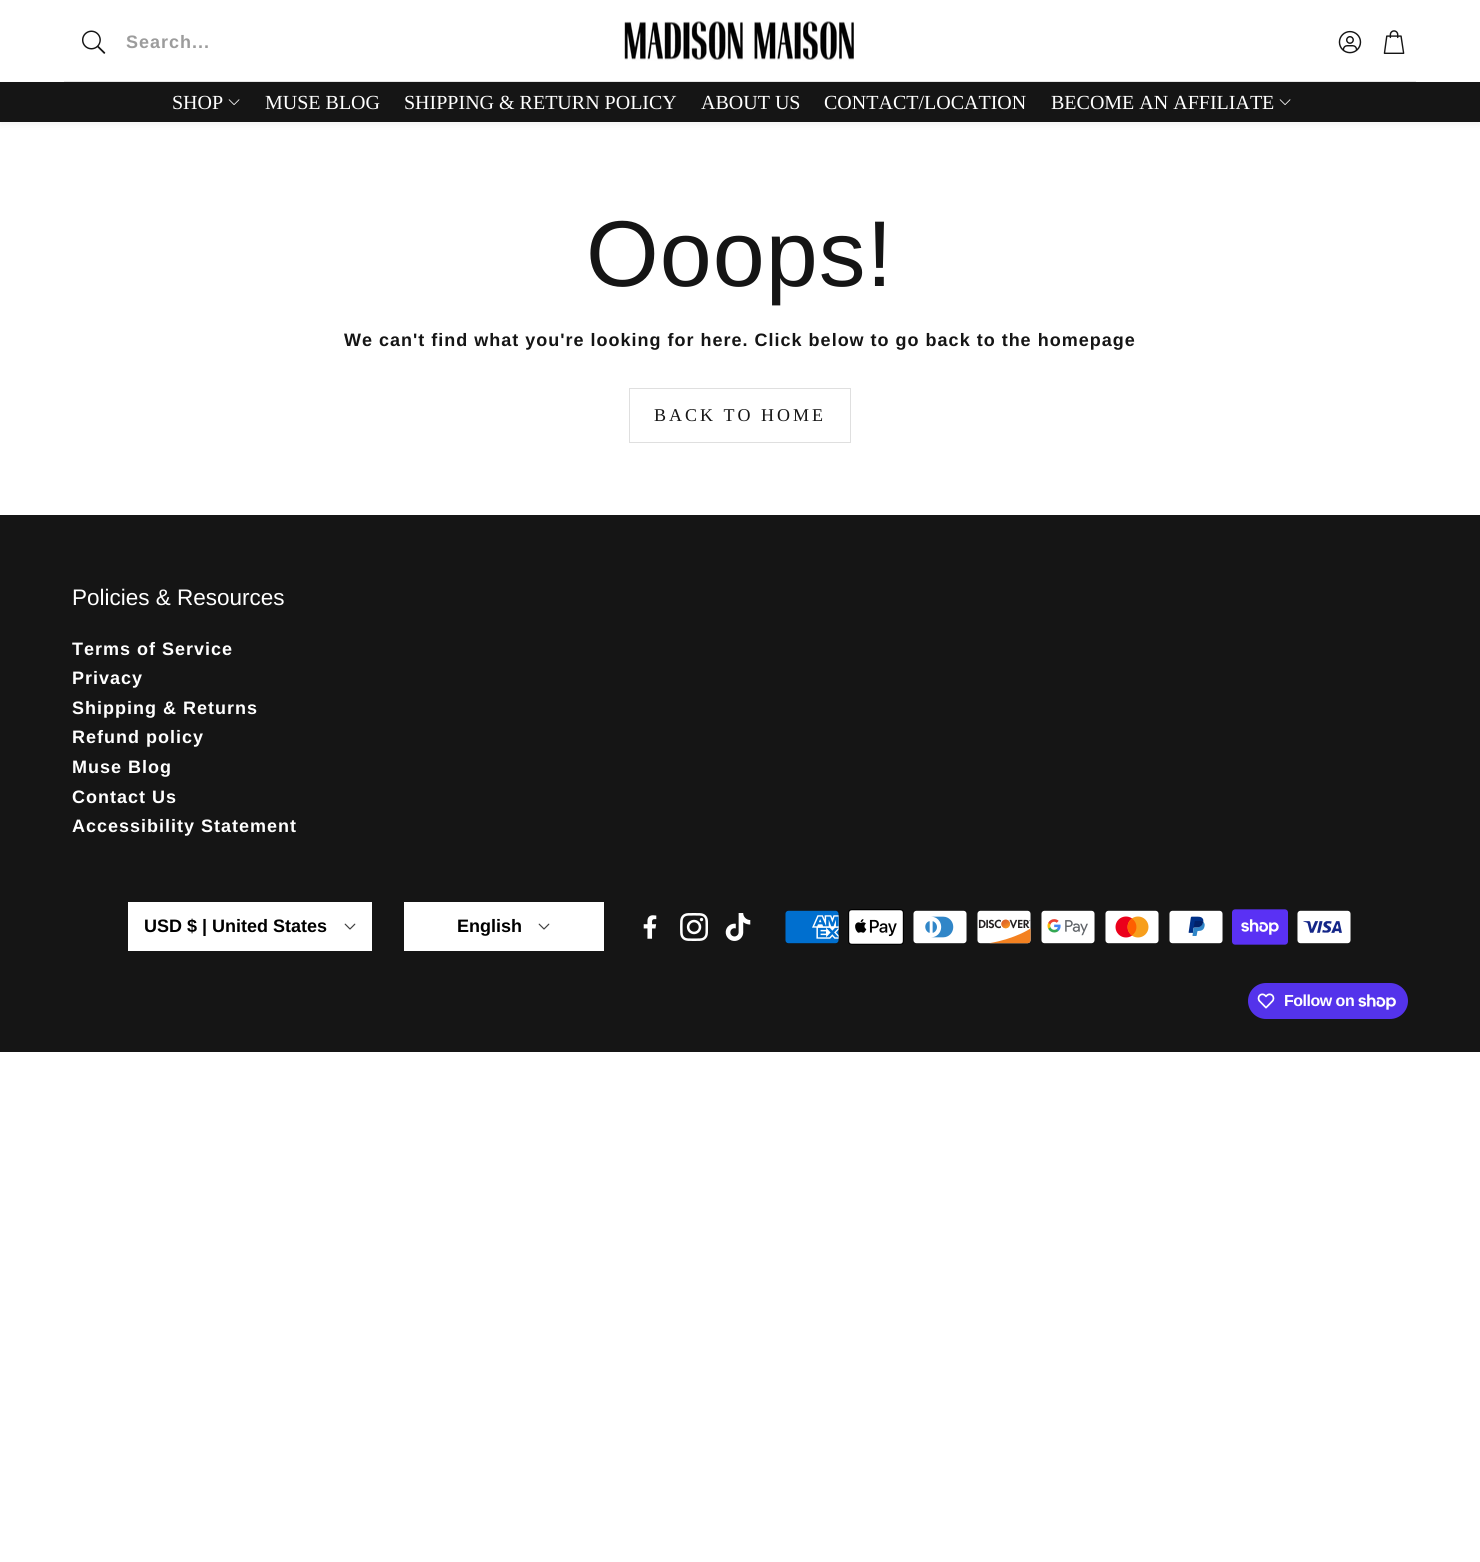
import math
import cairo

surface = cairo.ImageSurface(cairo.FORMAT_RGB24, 1480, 1562)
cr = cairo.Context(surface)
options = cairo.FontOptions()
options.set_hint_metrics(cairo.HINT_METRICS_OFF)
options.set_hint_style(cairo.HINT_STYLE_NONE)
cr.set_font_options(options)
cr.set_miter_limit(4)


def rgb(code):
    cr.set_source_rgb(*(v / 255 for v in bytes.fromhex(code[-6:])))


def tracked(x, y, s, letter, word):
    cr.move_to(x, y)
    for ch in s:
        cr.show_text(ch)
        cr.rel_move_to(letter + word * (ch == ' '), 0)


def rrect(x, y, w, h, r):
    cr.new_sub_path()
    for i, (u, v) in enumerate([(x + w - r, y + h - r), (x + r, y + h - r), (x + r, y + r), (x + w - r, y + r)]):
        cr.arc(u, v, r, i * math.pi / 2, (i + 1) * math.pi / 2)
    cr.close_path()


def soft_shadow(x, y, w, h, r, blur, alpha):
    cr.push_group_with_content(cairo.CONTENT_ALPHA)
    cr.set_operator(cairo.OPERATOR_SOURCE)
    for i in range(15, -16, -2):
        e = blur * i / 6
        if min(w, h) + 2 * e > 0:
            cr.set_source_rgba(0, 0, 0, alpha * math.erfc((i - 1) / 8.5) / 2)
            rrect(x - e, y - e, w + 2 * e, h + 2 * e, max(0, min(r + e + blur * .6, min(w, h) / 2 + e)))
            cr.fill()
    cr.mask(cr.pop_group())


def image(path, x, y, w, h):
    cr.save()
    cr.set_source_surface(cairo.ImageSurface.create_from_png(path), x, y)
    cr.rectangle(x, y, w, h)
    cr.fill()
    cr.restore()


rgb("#ffffff")
cr.paint()
image("img/1.png", 82, 30, 24, 24)
image("img/2.png", 624, 21, 230, 40)
image("img/3.png", 1338, 30, 24, 24)
image("img/4.png", 1383, 30, 22, 24)
rgb("#e7e7e7")
cr.rectangle(64, 81, 1352, 1)
cr.fill()
rgb("#000000")
soft_shadow(0, 85, 1480, 40, 0, 3, 0.05)
rgb("#151515")
cr.rectangle(0, 82, 1480, 40)
cr.fill()
image("img/5.png", 228, 99, 12, 6)
image("img/5.png", 1279, 99, 12, 6)
cr.rectangle(629.5, 388.5, 221, 54)
rgb("#dfdfdf")
cr.set_line_width(1)
cr.stroke()
rgb("#151515")
cr.rectangle(0, 515, 1480, 537)
cr.fill()
rgb("#ffffff")
cr.rectangle(128, 902, 244, 49)
cr.fill()
image("img/6.png", 344, 923, 12, 7)
cr.rectangle(404, 902, 200, 49)
cr.fill()
image("img/6.png", 538, 923, 12, 7)
image("img/7.png", 643, 915, 14, 24)
image("img/8.png", 680, 913, 28, 28)
image("img/9.png", 725, 913, 26, 28)
image("img/10.png", 785, 910, 54, 34)
image("img/11.png", 848, 909, 56, 36)
image("img/12.png", 913, 910, 54, 34)
image("img/13.png", 977, 910, 54, 34)
image("img/14.png", 1041, 910, 54, 34)
image("img/15.png", 1105, 910, 54, 34)
image("img/16.png", 1169, 910, 54, 34)
image("img/17.png", 1232, 909, 56, 36)
image("img/18.png", 1297, 910, 54, 34)
rgb("#5433eb")
rrect(1248, 983, 160, 36, 18)
cr.fill()
image("img/19.png", 1257, 993, 18, 16)
image("img/20.png", 1358, 994, 38, 16)
cr.select_font_face("Liberation Sans", cairo.FONT_SLANT_NORMAL, cairo.FONT_WEIGHT_BOLD)
cr.set_font_size(18)
rgb("#9c9c9c")
tracked(126, 48, "Search...", 1, 0)
cr.select_font_face("Liberation Serif")
cr.set_font_size(20)
rgb("#ffffff")
for x, y, s in [
    (172, 109, "SHOP"),
    (265, 109, "MUSE BLOG"),
    (404, 109, "SHIPPING & RETURN POLICY"),
    (701, 109, "ABOUT US"),
    (824, 109, "CONTACT/LOCATION"),
    (1051, 109, "BECOME AN AFFILIATE"),
]:
    cr.move_to(x, y)
    cr.show_text(s)
cr.select_font_face("Liberation Sans")
cr.set_font_size(93.5)
rgb("#151515")
tracked(586, 286, "Ooops!", 1, 0)
cr.select_font_face("Liberation Sans", cairo.FONT_SLANT_NORMAL, cairo.FONT_WEIGHT_BOLD)
cr.set_font_size(18)
tracked(344, 346, "We can't find what you're looking for here. Click below to go back to the homepage", 1, 0)
cr.select_font_face("Liberation Serif")
tracked(654, 421, "BACK TO HOME", 3, 0)
cr.select_font_face("Liberation Sans")
cr.set_font_size(22.5)
rgb("#ffffff")
cr.move_to(72, 605)
cr.show_text("Policies & Resources")
cr.select_font_face("Liberation Sans", cairo.FONT_SLANT_NORMAL, cairo.FONT_WEIGHT_BOLD)
cr.set_font_size(18)
for x, y, s in [
    (72, 655, "Terms of Service"),
    (72, 684, "Privacy"),
    (72, 714, "Shipping & Returns"),
    (72, 743, "Refund policy"),
    (72, 773, "Muse Blog"),
    (72, 803, "Contact Us"),
    (72, 832, "Accessibility Statement"),
]:
    tracked(x, y, s, 1, 0)
rgb("#000000")
cr.move_to(144, 932)
cr.show_text("USD $ | United States")
cr.move_to(457, 932)
cr.show_text("English")
cr.set_font_size(16)
rgb("#ffffff")
tracked(1284, 1006, "Follow on", -0.5, 0)
surface.write_to_png("page.png")
